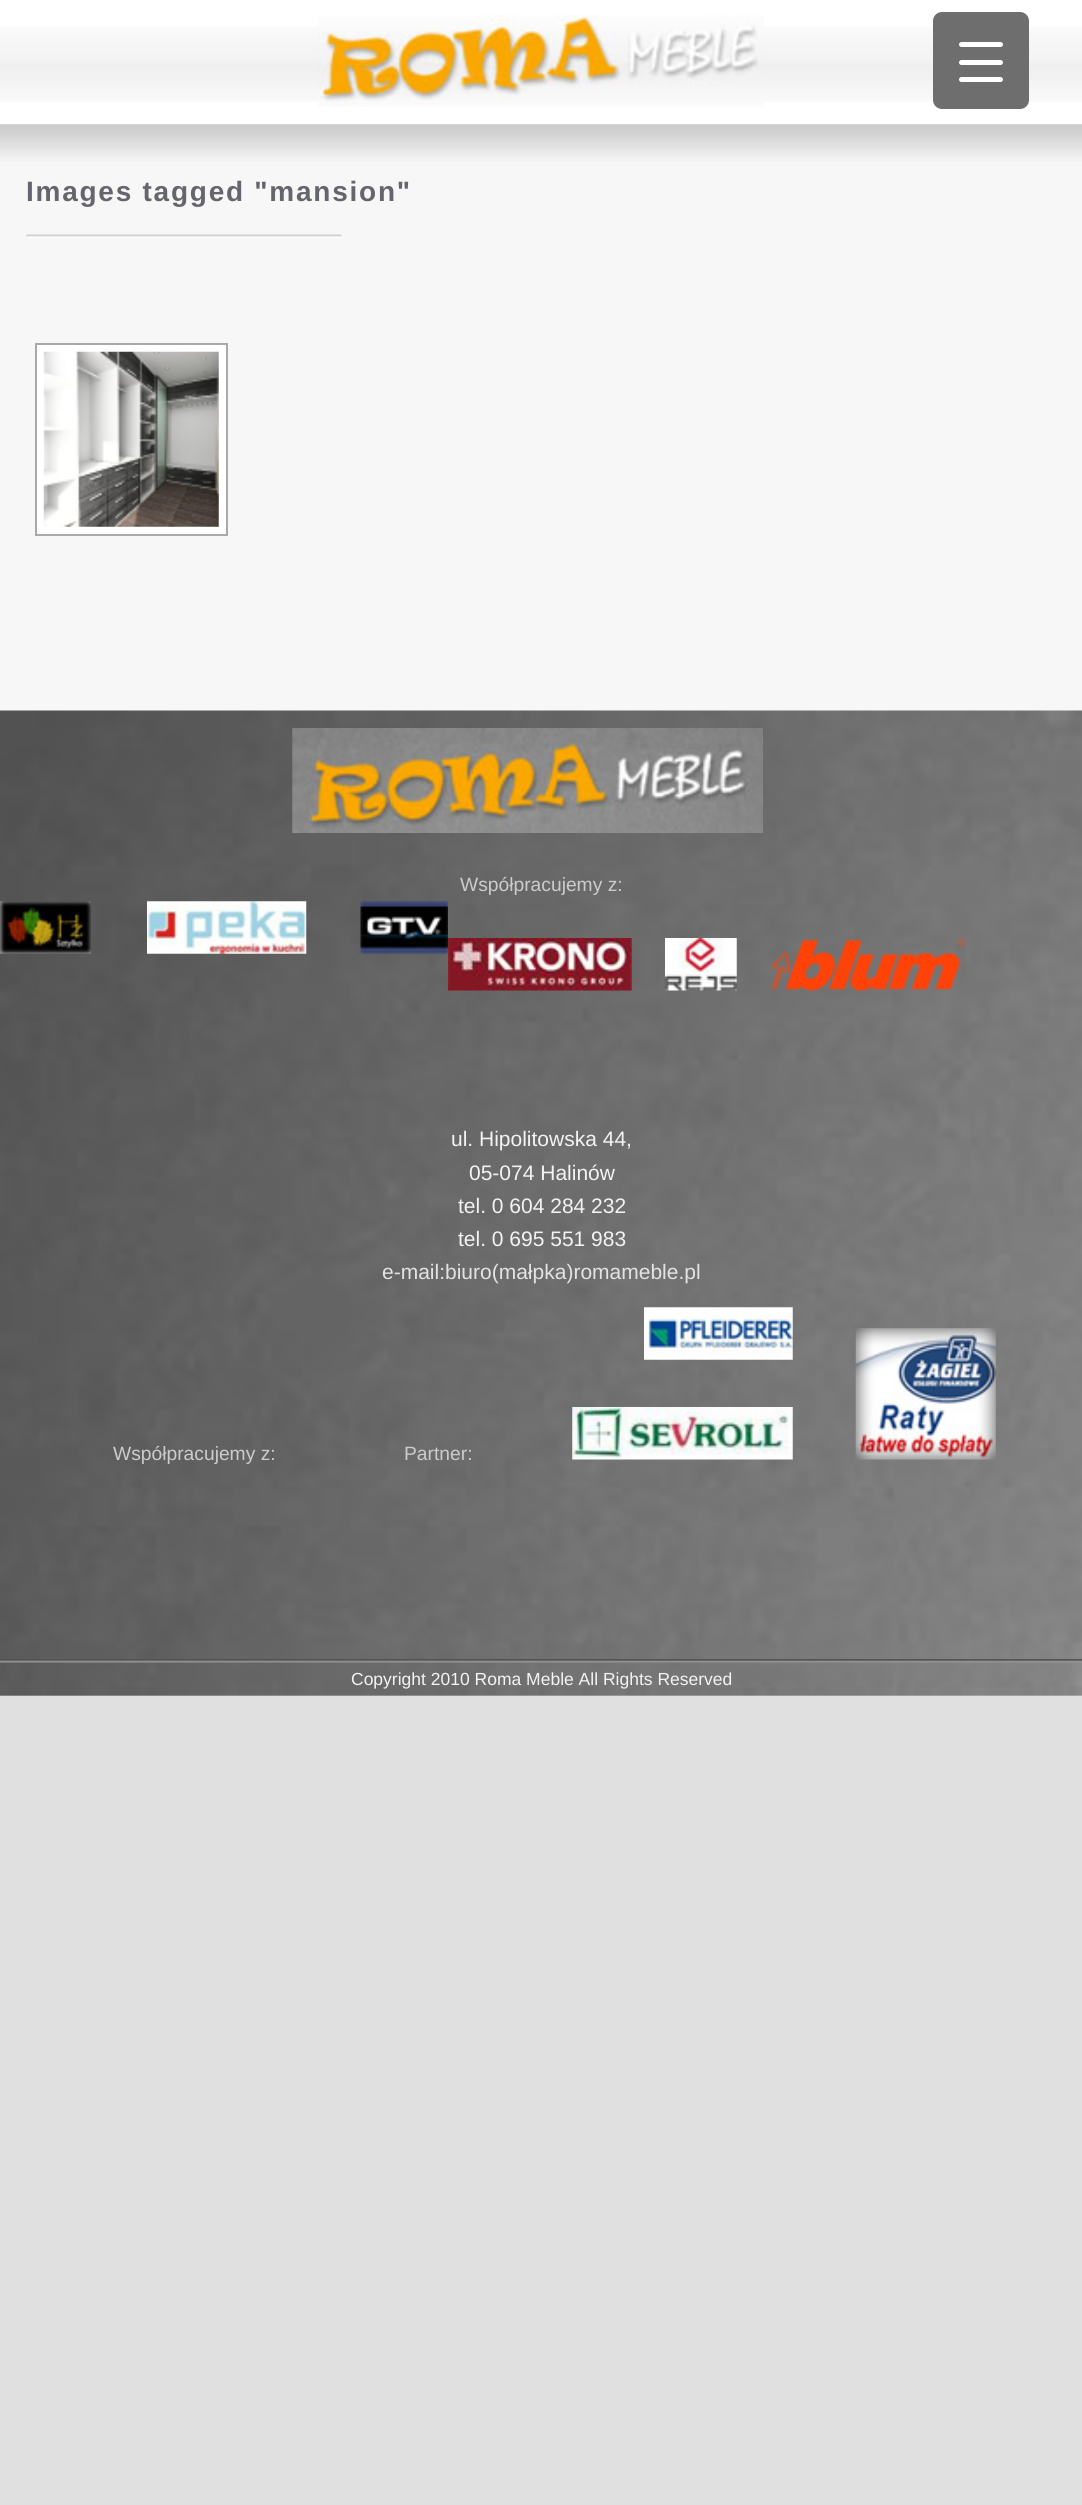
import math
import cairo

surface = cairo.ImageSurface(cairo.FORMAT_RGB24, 1082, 2505)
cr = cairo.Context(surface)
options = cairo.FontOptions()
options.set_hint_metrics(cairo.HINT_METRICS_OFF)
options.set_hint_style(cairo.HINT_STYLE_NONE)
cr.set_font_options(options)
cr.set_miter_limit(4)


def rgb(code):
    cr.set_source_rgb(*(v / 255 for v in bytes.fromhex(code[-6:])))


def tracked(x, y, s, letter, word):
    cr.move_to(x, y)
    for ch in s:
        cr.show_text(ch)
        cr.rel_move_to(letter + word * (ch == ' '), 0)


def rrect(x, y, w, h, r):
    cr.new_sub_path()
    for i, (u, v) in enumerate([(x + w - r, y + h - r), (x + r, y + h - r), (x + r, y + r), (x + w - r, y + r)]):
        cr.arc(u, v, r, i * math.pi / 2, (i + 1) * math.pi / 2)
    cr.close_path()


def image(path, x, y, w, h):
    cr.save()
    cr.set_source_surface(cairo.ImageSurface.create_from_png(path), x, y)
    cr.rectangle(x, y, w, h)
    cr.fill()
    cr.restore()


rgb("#e0e0e0")
cr.paint()
rgb("#ffffff")
cr.rectangle(0, 0, 1082, 1696)
cr.fill()
image("img/1.png", 0, 27, 1082, 75)
rgb("#6e6e6e")
rrect(933, 12, 96, 97, 9)
cr.fill()
rgb("#ffffff")
rrect(959, 60, 44, 5, 2.5)
cr.fill()
rrect(959, 42, 44, 5, 2.5)
cr.fill()
rrect(959, 77, 44, 5, 2.5)
cr.fill()
image("img/2.png", 318, 15, 446, 92)
rgb("#f7f7f7")
cr.rectangle(0, 124, 1082, 587)
cr.fill()
image("img/3.png", 0, 124, 1082, 38)
image("img/4.png", 26, 234, 316, 4)
rgb("#ffffff")
cr.rectangle(36, 344, 191, 191)
cr.fill_preserve()
rgb("#a9a9a9")
cr.stroke()
image("img/5.png", 43, 351, 176, 176)
image("img/6.png", 0, 710, 1082, 986)
image("img/7.png", 292, 728, 471, 105)
image("img/8.png", 0, 901, 91, 53)
image("img/9.png", 147, 901, 160, 53)
image("img/10.png", 360, 901, 88, 53)
image("img/11.png", 448, 938, 184, 53)
image("img/12.png", 665, 938, 72, 53)
image("img/13.png", 771, 938, 195, 53)
image("img/14.png", 644, 1307, 149, 53)
image("img/15.png", 572, 1407, 221, 53)
image("img/16.png", 855, 1328, 141, 132)
image("img/17.png", 0, 1659, 1082, 4)
cr.select_font_face("Liberation Sans", cairo.FONT_SLANT_NORMAL, cairo.FONT_WEIGHT_BOLD)
cr.set_font_size(28)
rgb("#65656d")
tracked(26, 201, "Images tagged \"mansion\"", 1.75, 0)
cr.select_font_face("Liberation Sans")
cr.set_font_size(19.25)
rgb("#cccccc")
cr.move_to(460, 891)
cr.show_text("Współpracujemy z:")
cr.set_font_size(21)
rgb("#f3f3f3")
for x, y, s in [
    (451, 1146, "ul. Hipolitowska 44,"),
    (469, 1180, "05-074 Halinów"),
    (458, 1213, "tel. 0 604 284 232"),
    (458, 1246, "tel. 0 695 551 983"),
]:
    cr.move_to(x, y)
    cr.show_text(s)
rgb("#e3e3e3")
cr.move_to(382, 1279)
cr.show_text("e-mail:biuro(małpka)romameble.pl")
cr.set_font_size(19.25)
rgb("#cccccc")
cr.move_to(113, 1460)
cr.show_text("Współpracujemy z:")
cr.move_to(404, 1460)
cr.show_text("Partner:")
cr.set_font_size(17.5)
rgb("#f3f3f3")
cr.move_to(351, 1685)
cr.show_text("Copyright 2010 Roma Meble All Rights Reserved")
surface.write_to_png("page.png")
